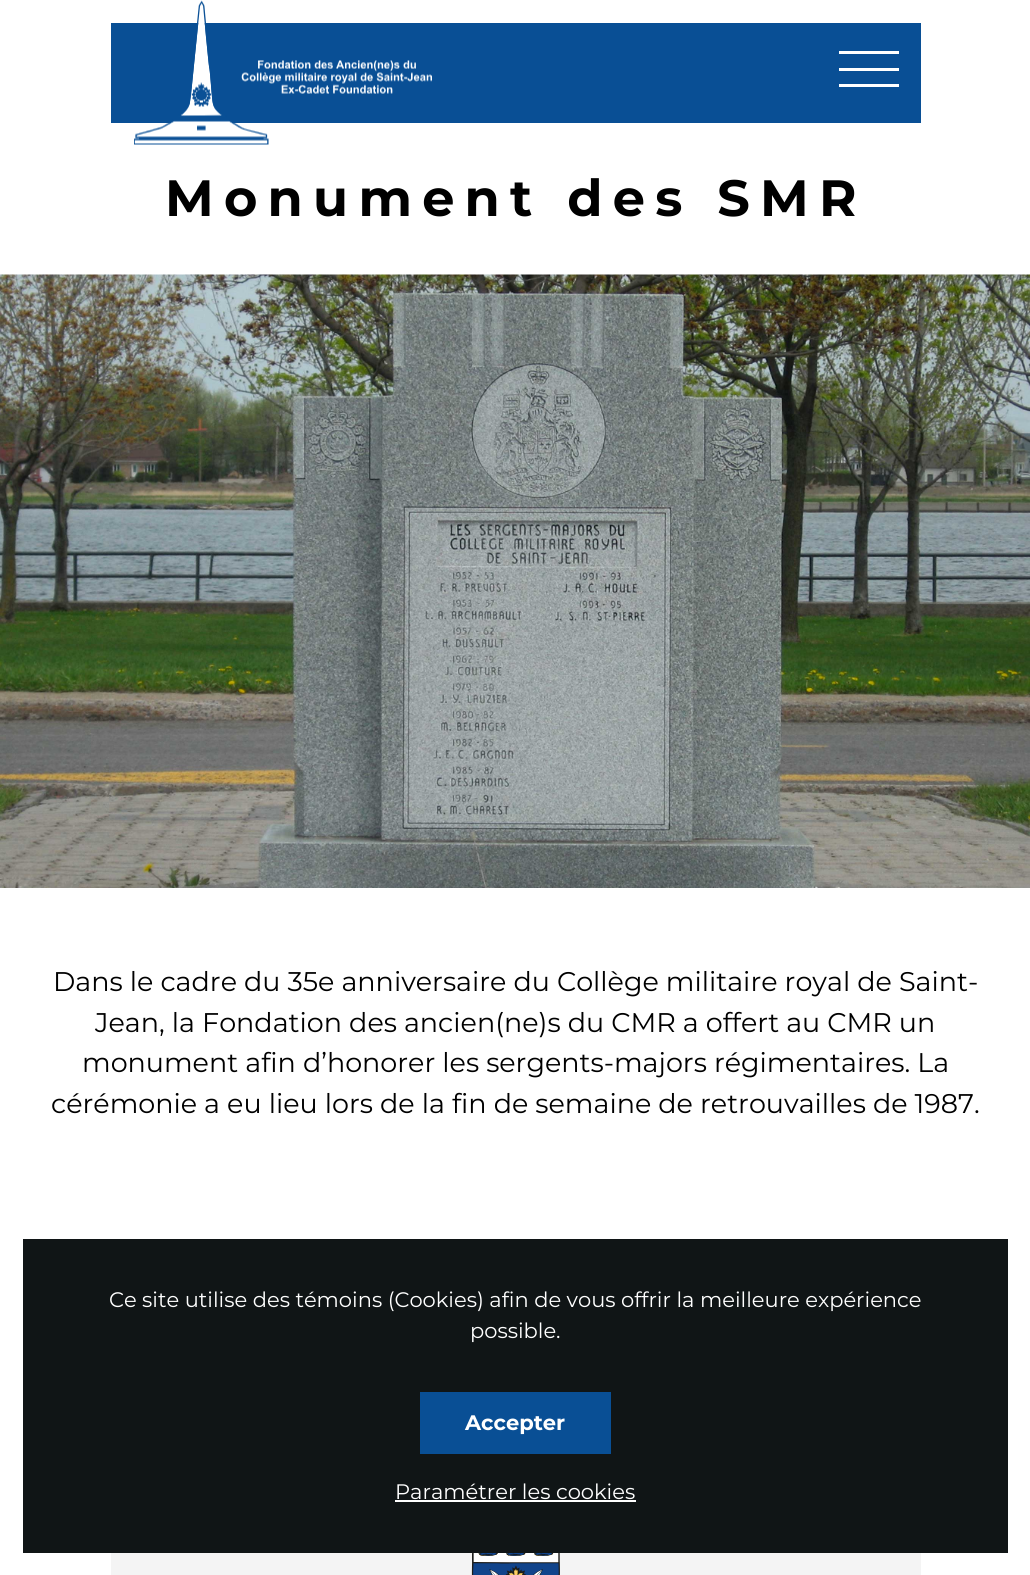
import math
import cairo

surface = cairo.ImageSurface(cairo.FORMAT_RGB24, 1030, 1575)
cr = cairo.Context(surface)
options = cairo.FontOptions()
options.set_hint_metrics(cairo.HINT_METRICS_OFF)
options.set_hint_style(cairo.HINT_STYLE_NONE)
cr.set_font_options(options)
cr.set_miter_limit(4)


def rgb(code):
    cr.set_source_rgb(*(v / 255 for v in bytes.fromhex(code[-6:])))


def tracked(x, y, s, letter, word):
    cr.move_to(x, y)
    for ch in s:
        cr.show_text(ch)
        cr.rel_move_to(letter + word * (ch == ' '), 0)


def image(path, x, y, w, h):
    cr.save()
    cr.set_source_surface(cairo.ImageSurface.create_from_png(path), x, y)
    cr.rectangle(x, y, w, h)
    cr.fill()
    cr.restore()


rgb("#ffffff")
cr.paint()
rgb("#094f95")
cr.rectangle(111, 23, 810, 100)
cr.fill()
image("img/1.png", 134, 0, 298, 145)
for x, y, w, h, color in [
    (839, 68, 60, 3, "#ffffff"),
    (839, 51, 60, 3, "#ffffff"),
    (839, 84, 60, 3, "#ffffff"),
]:
    rgb(color)
    cr.rectangle(x, y, w, h)
    cr.fill()
image("img/2.png", 0, 274, 1030, 614)
rgb("#f4f4f4")
cr.rectangle(111, 1553, 810, 22)
cr.fill()
image("img/3.png", 471, 1553, 89, 22)
for x, y, w, h, color in [
    (23, 1239, 985, 314, "#101516"),
    (420, 1392, 191, 62, "#094f95"),
    (395, 1500, 241, 2, "#ffffff"),
]:
    rgb(color)
    cr.rectangle(x, y, w, h)
    cr.fill()
cr.select_font_face("Montserrat", cairo.FONT_SLANT_NORMAL, cairo.FONT_WEIGHT_BOLD)
cr.set_font_size(51)
rgb("#000000")
tracked(165, 216, "Monument des SMR", 10.25, 0)
cr.select_font_face("Montserrat")
cr.set_font_size(27)
for x, y, s in [
    (53, 991, "Dans le cadre du 35e anniversaire du Collège militaire royal de Saint-"),
    (95, 1032, "Jean, la Fondation des ancien(ne)s du CMR a offert au CMR un"),
    (82, 1072, "monument afin d’honorer les sergents-majors régimentaires. La"),
    (51, 1113, "cérémonie a eu lieu lors de la fin de semaine de retrouvailles de 1987."),
]:
    cr.move_to(x, y)
    cr.show_text(s)
cr.set_font_size(21)
rgb("#ffffff")
cr.move_to(109, 1307)
cr.show_text("Ce site utilise des témoins (Cookies) afin de vous offrir la meilleure expérience")
cr.move_to(470, 1338)
cr.show_text("possible.")
cr.select_font_face("Montserrat", cairo.FONT_SLANT_NORMAL, cairo.FONT_WEIGHT_BOLD)
cr.move_to(465, 1430)
cr.show_text("Accepter")
cr.select_font_face("Montserrat")
cr.move_to(395, 1499)
cr.show_text("Paramétrer les cookies")
surface.write_to_png("page.png")
